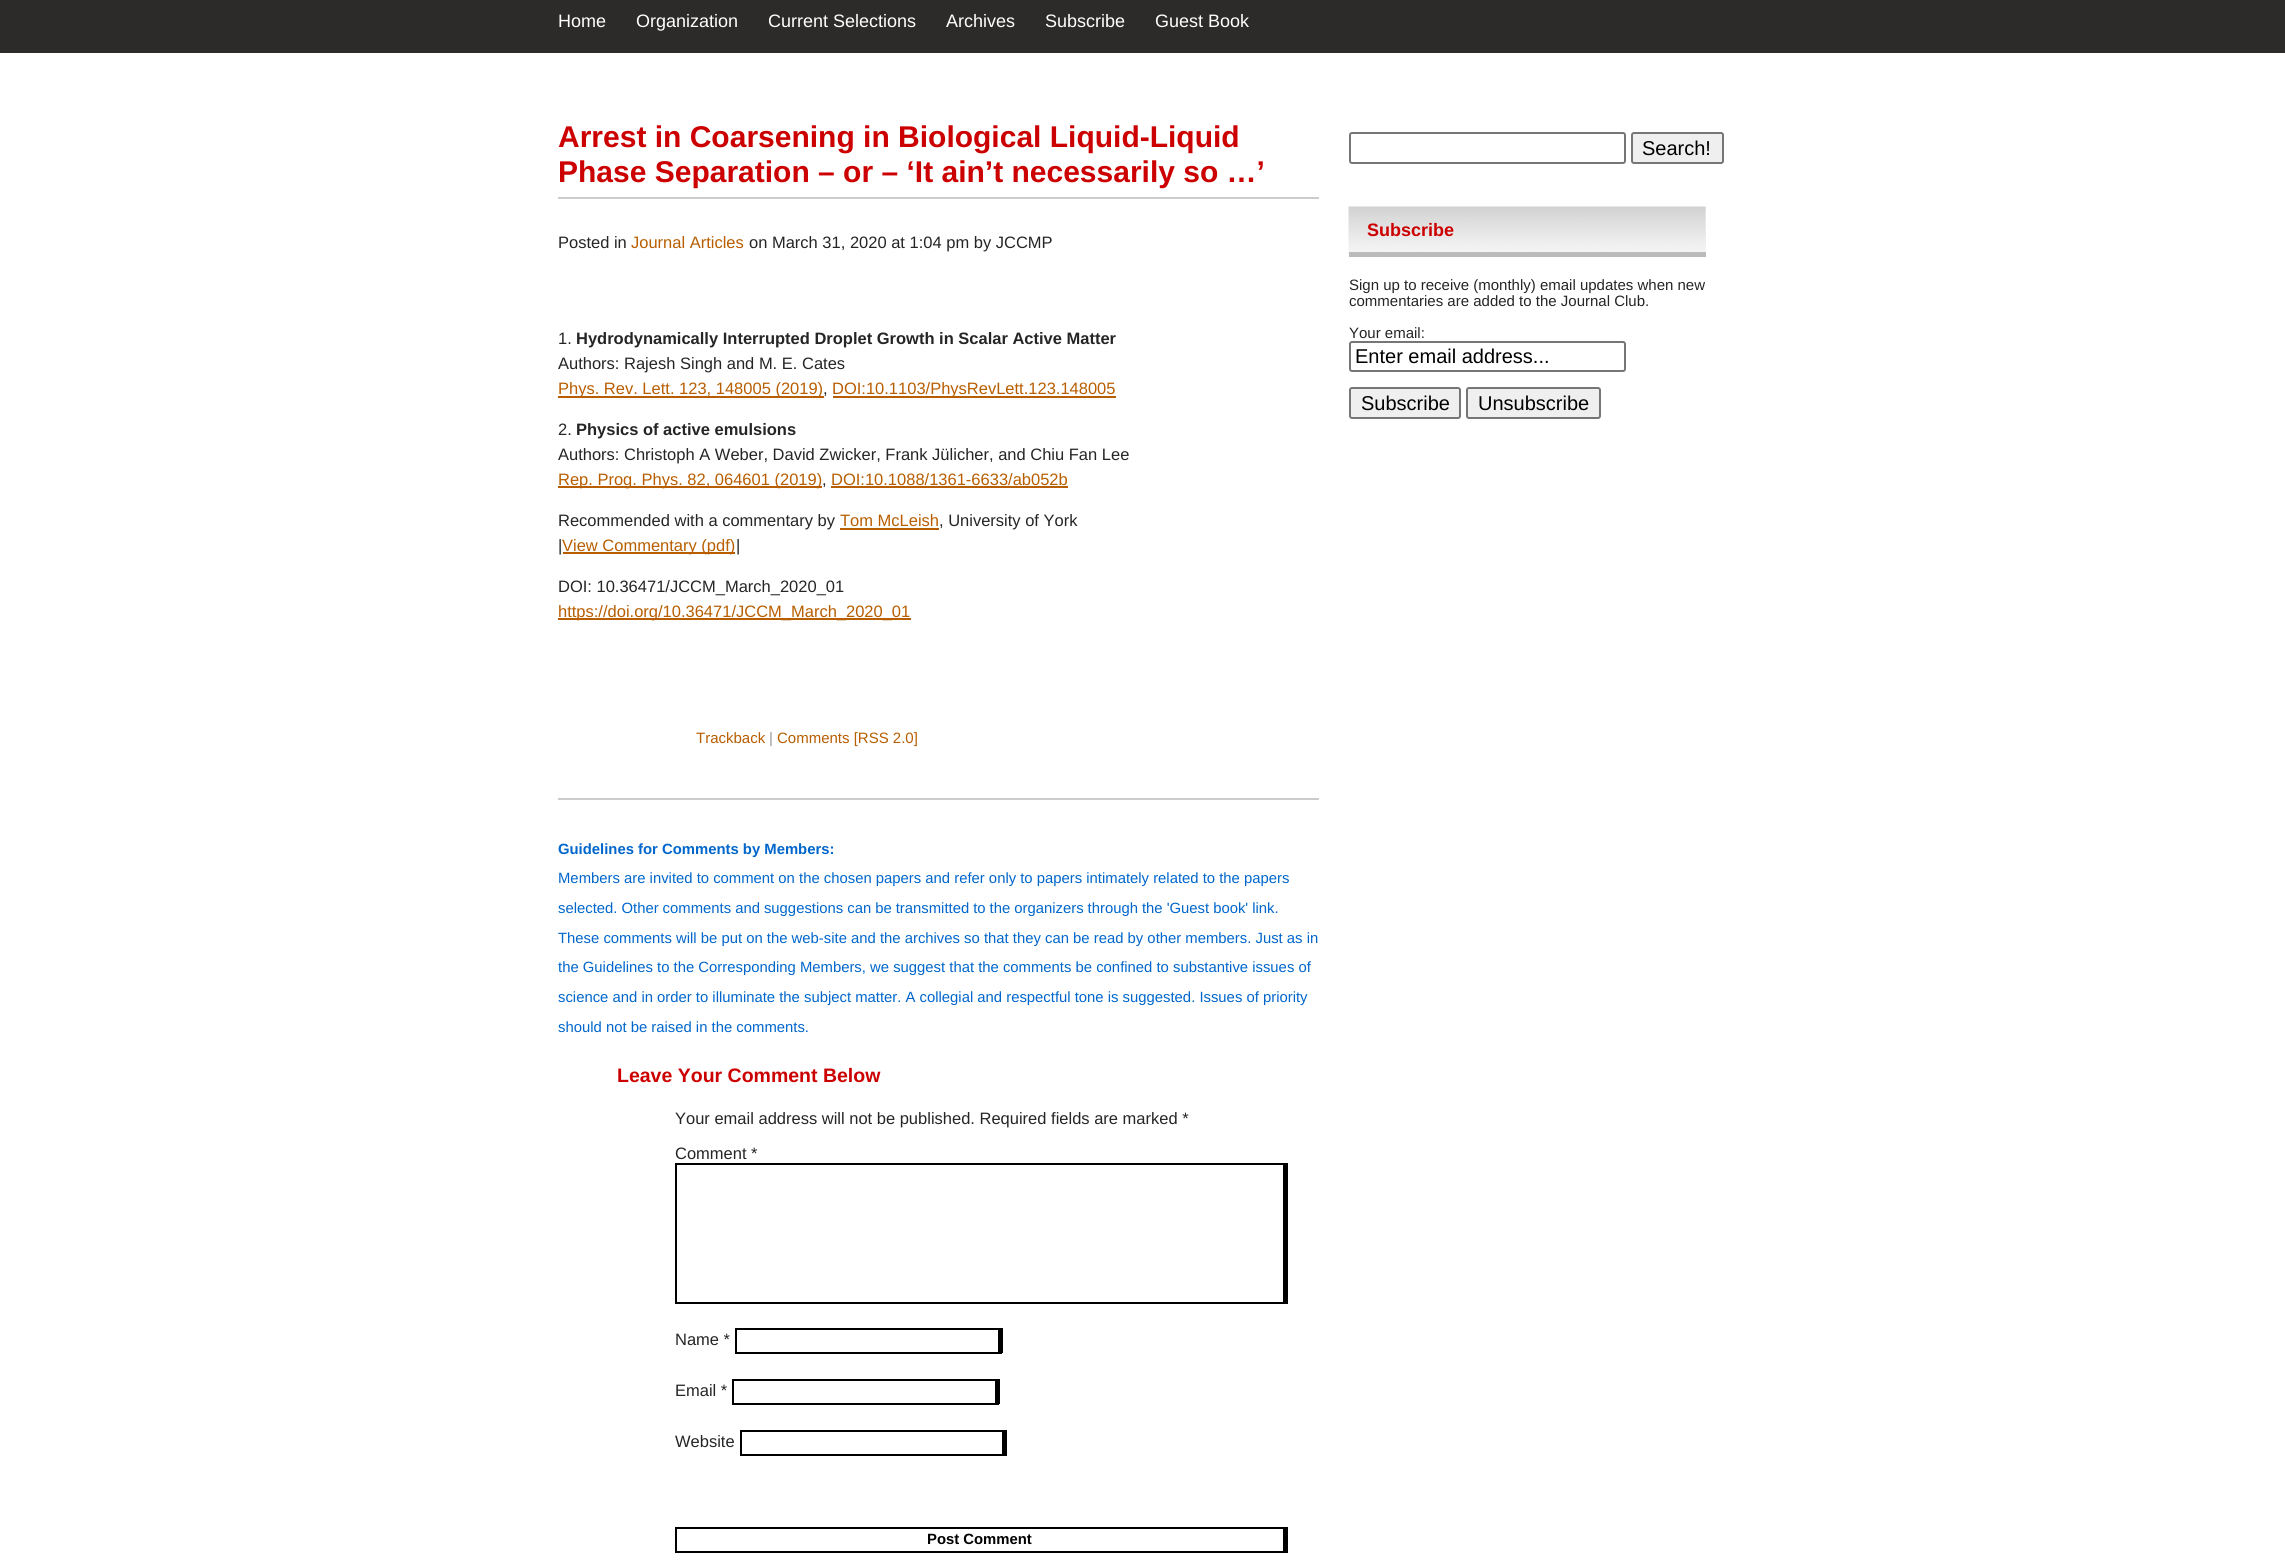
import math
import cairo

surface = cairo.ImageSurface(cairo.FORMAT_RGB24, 2285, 1565)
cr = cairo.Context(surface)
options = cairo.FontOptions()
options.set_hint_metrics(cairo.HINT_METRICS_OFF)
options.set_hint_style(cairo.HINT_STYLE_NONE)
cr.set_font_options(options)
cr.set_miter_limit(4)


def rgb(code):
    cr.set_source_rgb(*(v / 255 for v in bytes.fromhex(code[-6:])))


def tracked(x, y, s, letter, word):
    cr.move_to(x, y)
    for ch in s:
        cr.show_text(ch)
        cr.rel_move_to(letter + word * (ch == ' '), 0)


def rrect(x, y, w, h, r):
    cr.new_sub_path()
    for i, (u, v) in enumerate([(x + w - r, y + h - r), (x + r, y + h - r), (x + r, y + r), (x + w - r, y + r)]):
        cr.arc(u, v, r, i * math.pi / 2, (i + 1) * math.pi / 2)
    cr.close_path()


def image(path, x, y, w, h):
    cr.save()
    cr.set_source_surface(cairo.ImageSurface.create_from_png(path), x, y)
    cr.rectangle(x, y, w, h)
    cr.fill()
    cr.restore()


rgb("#ffffff")
cr.paint()
for x, y, w, h, color in [
    (0, 0, 2285, 53, "#2c2b29"),
    (558, 798, 761, 2, "#cccccc"),
    (558, 197, 761, 2, "#cccccc"),
    (558, 396, 266, 2, "#b85d00"),
    (833, 396, 283, 2, "#b85d00"),
    (558, 486, 264, 2, "#b85d00"),
    (831, 486, 237, 2, "#b85d00"),
    (840, 528, 99, 2, "#b85d00"),
    (563, 552, 172, 2, "#b85d00"),
    (558, 618, 353, 2, "#b85d00"),
    (675, 1163, 612, 2, "#000000"),
    (1283, 1163, 5, 141, "#000000"),
    (675, 1302, 612, 2, "#000000"),
    (675, 1163, 2, 141, "#000000"),
    (735, 1328, 267, 2, "#000000"),
    (998, 1328, 5, 25, "#000000"),
    (735, 1352, 267, 2, "#000000"),
    (735, 1328, 2, 25, "#000000"),
    (732, 1379, 267, 2, "#000000"),
    (995, 1379, 5, 25, "#000000"),
    (732, 1403, 267, 2, "#000000"),
    (732, 1379, 2, 25, "#000000"),
    (740, 1430, 267, 2, "#000000"),
    (1002, 1430, 5, 25, "#000000"),
    (740, 1454, 267, 2, "#000000"),
    (740, 1430, 2, 25, "#000000"),
    (675, 1527, 612, 2, "#000000"),
    (1283, 1527, 5, 26, "#000000"),
    (675, 1551, 612, 2, "#000000"),
    (675, 1527, 2, 26, "#000000"),
]:
    rgb(color)
    cr.rectangle(x, y, w, h)
    cr.fill()
rrect(1350, 133, 275, 30, 2)
rgb("#767676")
cr.stroke()
rgb("#efefef")
rrect(1632, 133, 91, 30, 2)
cr.fill_preserve()
rgb("#767676")
cr.stroke()
rgb("#eeeeee")
cr.rectangle(1705, 207, 1, 45)
cr.fill()
image("img/1.png", 1348, 206, 358, 50)
rgb("#bbbbbb")
cr.rectangle(1349, 252, 357, 5)
cr.fill()
rrect(1350, 342, 275, 29, 2)
rgb("#767676")
cr.stroke()
rgb("#efefef")
rrect(1350, 388, 110, 30, 2)
cr.fill_preserve()
rgb("#767676")
cr.stroke()
rgb("#efefef")
rrect(1467, 388, 133, 30, 2)
cr.fill_preserve()
rgb("#767676")
cr.stroke()
cr.select_font_face("Liberation Sans")
cr.set_font_size(18)
rgb("#ffffff")
for x, y, s in [
    (558, 27, "Home"),
    (636, 27, "Organization"),
    (768, 27, "Current Selections"),
    (946, 27, "Archives"),
    (1045, 27, "Subscribe"),
    (1155, 27, "Guest Book"),
]:
    cr.move_to(x, y)
    cr.show_text(s)
cr.select_font_face("Liberation Sans", cairo.FONT_SLANT_NORMAL, cairo.FONT_WEIGHT_BOLD)
cr.set_font_size(30)
rgb("#cc0000")
cr.move_to(558, 147)
cr.show_text("Arrest in Coarsening in Biological Liquid-Liquid")
cr.move_to(558, 182)
cr.show_text("Phase Separation – or – ‘It ain’t necessarily so …’")
cr.select_font_face("Liberation Sans")
cr.set_font_size(16.5)
rgb("#252525")
cr.move_to(558, 248)
cr.show_text("Posted in")
rgb("#b85d00")
cr.move_to(631, 248)
cr.show_text("Journal Articles")
rgb("#252525")
cr.move_to(749, 248)
cr.show_text("on March 31, 2020 at 1:04 pm by JCCMP")
cr.move_to(558, 344)
cr.show_text("1.")
cr.select_font_face("Liberation Sans", cairo.FONT_SLANT_NORMAL, cairo.FONT_WEIGHT_BOLD)
cr.move_to(576, 344)
cr.show_text("Hydrodynamically Interrupted Droplet Growth in Scalar Active Matter")
cr.select_font_face("Liberation Sans")
cr.move_to(558, 369)
cr.show_text("Authors: Rajesh Singh and M. E. Cates")
rgb("#b85d00")
cr.move_to(558, 394)
cr.show_text("Phys. Rev. Lett. 123, 148005 (2019)")
rgb("#252525")
cr.move_to(823, 394)
cr.show_text(",")
rgb("#b85d00")
cr.move_to(832, 394)
cr.show_text("DOI:10.1103/PhysRevLett.123.148005")
rgb("#252525")
cr.move_to(558, 435)
cr.show_text("2.")
cr.select_font_face("Liberation Sans", cairo.FONT_SLANT_NORMAL, cairo.FONT_WEIGHT_BOLD)
cr.move_to(576, 435)
cr.show_text("Physics of active emulsions")
cr.select_font_face("Liberation Sans")
cr.move_to(558, 460)
cr.show_text("Authors: Christoph A Weber, David Zwicker, Frank Jülicher, and Chiu Fan Lee")
rgb("#b85d00")
cr.move_to(558, 485)
cr.show_text("Rep. Prog. Phys. 82, 064601 (2019)")
rgb("#252525")
cr.move_to(822, 485)
cr.show_text(",")
rgb("#b85d00")
cr.move_to(831, 485)
cr.show_text("DOI:10.1088/1361-6633/ab052b")
rgb("#252525")
cr.move_to(558, 526)
cr.show_text("Recommended with a commentary by")
rgb("#b85d00")
cr.move_to(840, 526)
cr.show_text("Tom McLeish")
rgb("#252525")
cr.move_to(939, 526)
cr.show_text(", University of York")
cr.move_to(558, 551)
cr.show_text("|")
rgb("#b85d00")
cr.move_to(562, 551)
cr.show_text("View Commentary (pdf)")
rgb("#252525")
cr.move_to(736, 551)
cr.show_text("|")
cr.move_to(558, 592)
cr.show_text("DOI: 10.36471/JCCM_March_2020_01")
rgb("#b85d00")
cr.move_to(558, 617)
cr.show_text("https://doi.org/10.36471/JCCM_March_2020_01")
cr.set_font_size(15)
cr.move_to(696, 743)
cr.show_text("Trackback")
rgb("#999999")
cr.move_to(769, 743)
cr.show_text("|")
rgb("#b85d00")
cr.move_to(777, 743)
cr.show_text("Comments [RSS 2.0]")
cr.select_font_face("Liberation Sans", cairo.FONT_SLANT_NORMAL, cairo.FONT_WEIGHT_BOLD)
cr.set_font_size(14.85)
rgb("#0066cc")
cr.move_to(558, 854)
cr.show_text("Guidelines for Comments by Members:")
cr.select_font_face("Liberation Sans")
cr.move_to(558, 883)
cr.show_text("Members are invited to comment on the chosen papers and refer only to papers intimately related to the papers")
tracked(558, 913, "selected. Other comments and suggestions can be transmitted to the organizers through the 'Guest book' link.", 0, -0.1)
for x, y, s in [
    (558, 943, "These comments will be put on the web-site and the archives so that they can be read by other members. Just as in"),
    (558, 972, "the Guidelines to the Corresponding Members, we suggest that the comments be confined to substantive issues of"),
    (558, 1002, "science and in order to illuminate the subject matter. A collegial and respectful tone is suggested. Issues of priority"),
    (558, 1032, "should not be raised in the comments."),
]:
    cr.move_to(x, y)
    cr.show_text(s)
cr.select_font_face("Liberation Sans", cairo.FONT_SLANT_NORMAL, cairo.FONT_WEIGHT_BOLD)
cr.set_font_size(19.5)
rgb("#cc0000")
cr.move_to(617, 1082)
cr.show_text("Leave Your Comment Below")
cr.select_font_face("Liberation Sans")
cr.set_font_size(16.5)
rgb("#252525")
for x, y, s in [
    (675, 1124, "Your email address will not be published. Required fields are marked *"),
    (675, 1159, "Comment *"),
    (675, 1345, "Name *"),
    (675, 1396, "Email *"),
    (675, 1447, "Website"),
]:
    cr.move_to(x, y)
    cr.show_text(s)
cr.select_font_face("Liberation Sans", cairo.FONT_SLANT_NORMAL, cairo.FONT_WEIGHT_BOLD)
cr.set_font_size(14.85)
rgb("#000000")
cr.move_to(927, 1544)
cr.show_text("Post Comment")
cr.select_font_face("Liberation Sans")
cr.set_font_size(20)
cr.move_to(1642, 155)
cr.show_text("Search!")
cr.select_font_face("Liberation Sans", cairo.FONT_SLANT_NORMAL, cairo.FONT_WEIGHT_BOLD)
cr.set_font_size(18)
rgb("#cc0000")
cr.move_to(1367, 236)
cr.show_text("Subscribe")
cr.select_font_face("Liberation Sans")
cr.set_font_size(15)
rgb("#252525")
for x, y, s in [
    (1349, 290, "Sign up to receive (monthly) email updates when new"),
    (1349, 306, "commentaries are added to the Journal Club."),
    (1349, 338, "Your email:"),
]:
    cr.move_to(x, y)
    cr.show_text(s)
cr.set_font_size(20)
rgb("#000000")
for x, y, s in [
    (1355, 363, "Enter email address..."),
    (1361, 410, "Subscribe"),
    (1478, 410, "Unsubscribe"),
]:
    cr.move_to(x, y)
    cr.show_text(s)
surface.write_to_png("page.png")
